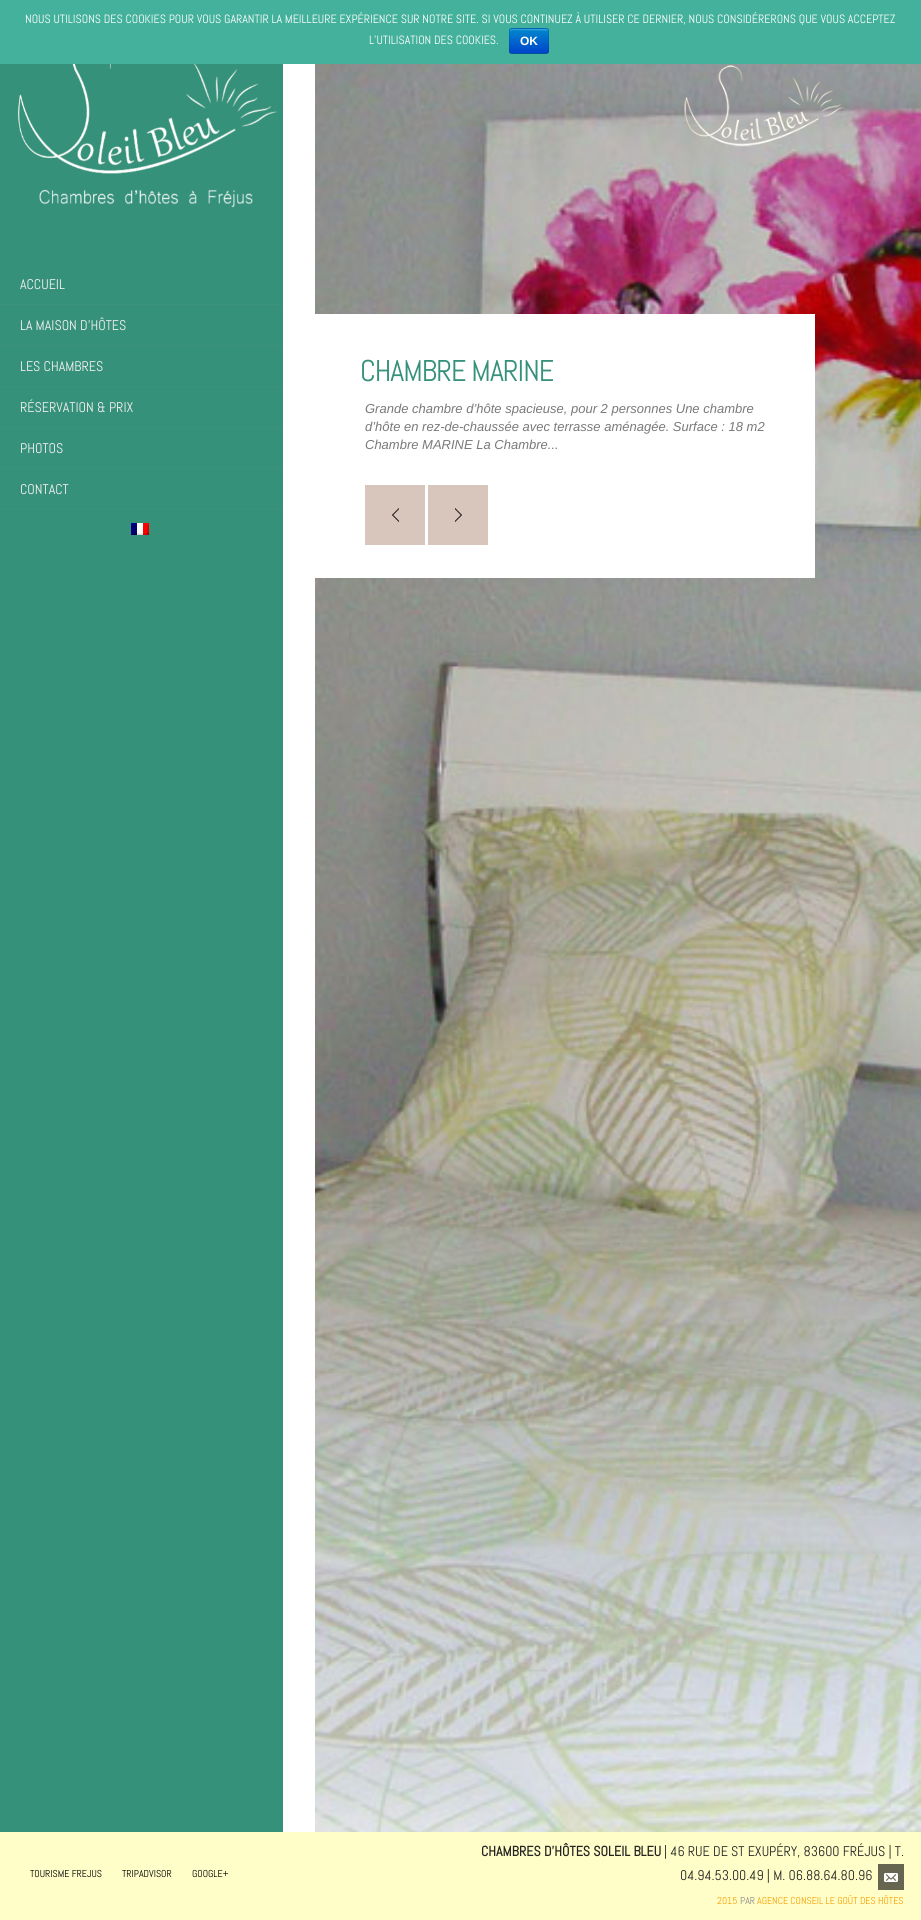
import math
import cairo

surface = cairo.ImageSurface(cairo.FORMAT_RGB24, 921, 1920)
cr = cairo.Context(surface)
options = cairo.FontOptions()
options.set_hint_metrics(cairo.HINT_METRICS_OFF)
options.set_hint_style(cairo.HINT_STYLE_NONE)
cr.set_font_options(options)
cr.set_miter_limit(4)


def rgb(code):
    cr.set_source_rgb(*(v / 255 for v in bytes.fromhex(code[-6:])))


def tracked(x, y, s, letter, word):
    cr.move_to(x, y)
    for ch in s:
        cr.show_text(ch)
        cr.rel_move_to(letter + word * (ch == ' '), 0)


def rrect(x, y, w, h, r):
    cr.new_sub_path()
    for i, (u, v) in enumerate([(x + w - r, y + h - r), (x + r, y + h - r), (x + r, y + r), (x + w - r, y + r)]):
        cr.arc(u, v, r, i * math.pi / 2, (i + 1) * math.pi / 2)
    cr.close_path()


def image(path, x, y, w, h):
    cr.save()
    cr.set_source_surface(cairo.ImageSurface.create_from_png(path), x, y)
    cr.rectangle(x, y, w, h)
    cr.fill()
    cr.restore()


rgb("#ffffff")
cr.paint()
rgb("#43b19b")
cr.rectangle(0, 0, 921, 64)
cr.fill()
rgb("#006dcc")
rrect(509, 28, 40, 26, 3)
cr.fill()
cr.save()
rrect(509, 28, 40, 26, 3)
cr.clip()
gradient = cairo.LinearGradient(529, 29, 529, 53)
gradient.add_color_stop_rgba(0, 0, 0.533, 0.8, 1)
gradient.add_color_stop_rgba(1, 0, 0.267, 0.8, 1)
cr.set_source(gradient)
cr.rectangle(509, 29, 40, 24)
cr.fill()
cr.restore()
cr.set_source_rgba(1, 1, 1, 0.2)
cr.set_fill_rule(cairo.FILL_RULE_EVEN_ODD)
cr.new_path()
cr.move_to(512, 30)
cr.line_to(546.5, 30.5)
cr.curve_to(547, 30.5, 547.5, 30.5, 548, 31.5)
cr.curve_to(548, 27.5, 542, 29, 540.5, 29)
cr.line_to(517.5, 29)
cr.curve_to(512.5, 29, 510, 27.5, 510, 32.5)
cr.curve_to(510, 31, 511, 30, 512, 30)
cr.close_path()
cr.move_to(510, 51.5)
cr.line_to(510, 51)
cr.close_path()
cr.fill()
cr.new_path()
cr.move_to(548, 53)
cr.line_to(546, 53.5)
cr.line_to(512, 53.5)
cr.line_to(510, 53)
cr.set_source_rgba(0, 0, 0, 0.25)
cr.set_line_width(1)
cr.stroke()
cr.new_path()
cr.move_to(510, 53)
cr.curve_to(510, 52.5, 509.5, 51.5, 509.5, 51)
cr.line_to(509.5, 31)
cr.curve_to(509.5, 30.5, 510, 29.5, 510, 29)
cr.curve_to(510.5, 29, 511.5, 28.5, 512, 28.5)
cr.line_to(546, 28.5)
cr.curve_to(546.5, 28.5, 547.5, 29, 548, 29)
cr.curve_to(548, 29.5, 548.5, 30.5, 548.5, 31)
cr.line_to(548.5, 51)
cr.curve_to(548.5, 51.5, 548, 52.5, 548, 53)
cr.set_source_rgba(0, 0, 0, 0.1)
cr.stroke()
rgb("#fffec8")
cr.rectangle(0, 1832, 921, 88)
cr.fill()
rgb("#666650")
cr.rectangle(878, 1864, 26, 26)
cr.fill()
image("img/1.png", 884, 1873, 14, 9)
image("img/2.png", 315, 64, 606, 1768)
image("img/3.png", 684, 65, 161, 82)
rgb("#36917a")
cr.rectangle(0, 64, 283, 1768)
cr.fill()
image("img/4.png", 17, 64, 260, 144)
for x, y, w, h, color in [
    (0, 304, 283, 1, "#3c927c"),
    (0, 345, 283, 1, "#3c927c"),
    (0, 386, 283, 1, "#3c927c"),
    (0, 427, 283, 1, "#3c927c"),
    (0, 468, 283, 1, "#3c927c"),
    (0, 509, 283, 1, "#3c927c"),
]:
    rgb(color)
    cr.rectangle(x, y, w, h)
    cr.fill()
image("img/5.png", 131, 523, 18, 12)
rgb("#ffffff")
cr.rectangle(315, 314, 500, 264)
cr.fill()
rgb("#d8c6bc")
cr.rectangle(365, 485, 60, 60)
cr.fill()
image("img/6.png", 392, 508, 7, 14)
cr.rectangle(428, 485, 60, 60)
cr.fill()
image("img/7.png", 455, 508, 7, 14)
cr.select_font_face("Abel")
cr.set_font_size(12)
rgb("#ffffff")
cr.move_to(25, 23)
cr.show_text("NOUS UTILISONS DES COOKIES POUR VOUS GARANTIR LA MEILLEURE EXPÉRIENCE SUR NOTRE SITE. SI VOUS CONTINUEZ À UTILISER CE DERNIER, NOUS CONSIDÉRERONS QUE VOUS ACCEPTEZ")
cr.move_to(369, 44)
cr.show_text("L'UTILISATION DES COOKIES.")
cr.select_font_face("Liberation Sans", cairo.FONT_SLANT_NORMAL, cairo.FONT_WEIGHT_BOLD)
cr.move_to(520, 45)
cr.show_text("OK")
cr.select_font_face("Abel")
cr.set_font_size(10)
rgb("#000000")
for x, y, s in [
    (30, 1877, "TOURISME FREJUS"),
    (122, 1877, "TRIPADVISOR"),
    (192, 1877, "GOOGLE+"),
]:
    cr.move_to(x, y)
    cr.show_text(s)
cr.select_font_face("Abel", cairo.FONT_SLANT_NORMAL, cairo.FONT_WEIGHT_BOLD)
cr.set_font_size(14)
rgb("#242424")
cr.move_to(481, 1856)
cr.show_text("CHAMBRES D'HÔTES SOLEIL BLEU")
cr.select_font_face("Abel")
cr.move_to(664, 1856)
cr.show_text("| 46 RUE DE ST EXUPÉRY, 83600 FRÉJUS | T.")
cr.move_to(680, 1880)
cr.show_text("04.94.53.00.49 | M. 06.88.64.80.96")
cr.set_font_size(10)
rgb("#f6a000")
cr.move_to(717, 1904)
cr.show_text("2015")
rgb("#878787")
cr.move_to(740, 1904)
cr.show_text("PAR")
rgb("#f6a000")
cr.move_to(757, 1904)
cr.show_text("AGENCE CONSEIL LE GOÛT DES HÔTES")
cr.set_font_size(14)
rgb("#f4f0f0")
for x, y, s in [
    (20, 289, "ACCUEIL"),
    (20, 330, "LA MAISON D’HÔTES"),
    (20, 371, "LES CHAMBRES"),
    (20, 412, "RÉSERVATION & PRIX"),
    (20, 453, "PHOTOS"),
    (20, 494, "CONTACT"),
]:
    cr.move_to(x, y)
    cr.show_text(s)
cr.set_font_size(30)
rgb("#36917a")
tracked(360, 381, "CHAMBRE MARINE", -1, 0)
cr.select_font_face("Liberation Sans", cairo.FONT_SLANT_ITALIC)
cr.set_font_size(13)
rgb("#79797a")
for x, y, s in [
    (365, 413, "Grande chambre d’hôte spacieuse, pour 2 personnes Une chambre"),
    (365, 431, "d’hôte en rez-de-chaussée avec terrasse aménagée. Surface : 18 m2"),
    (365, 449, "Chambre MARINE La Chambre..."),
]:
    cr.move_to(x, y)
    cr.show_text(s)
surface.write_to_png("page.png")
